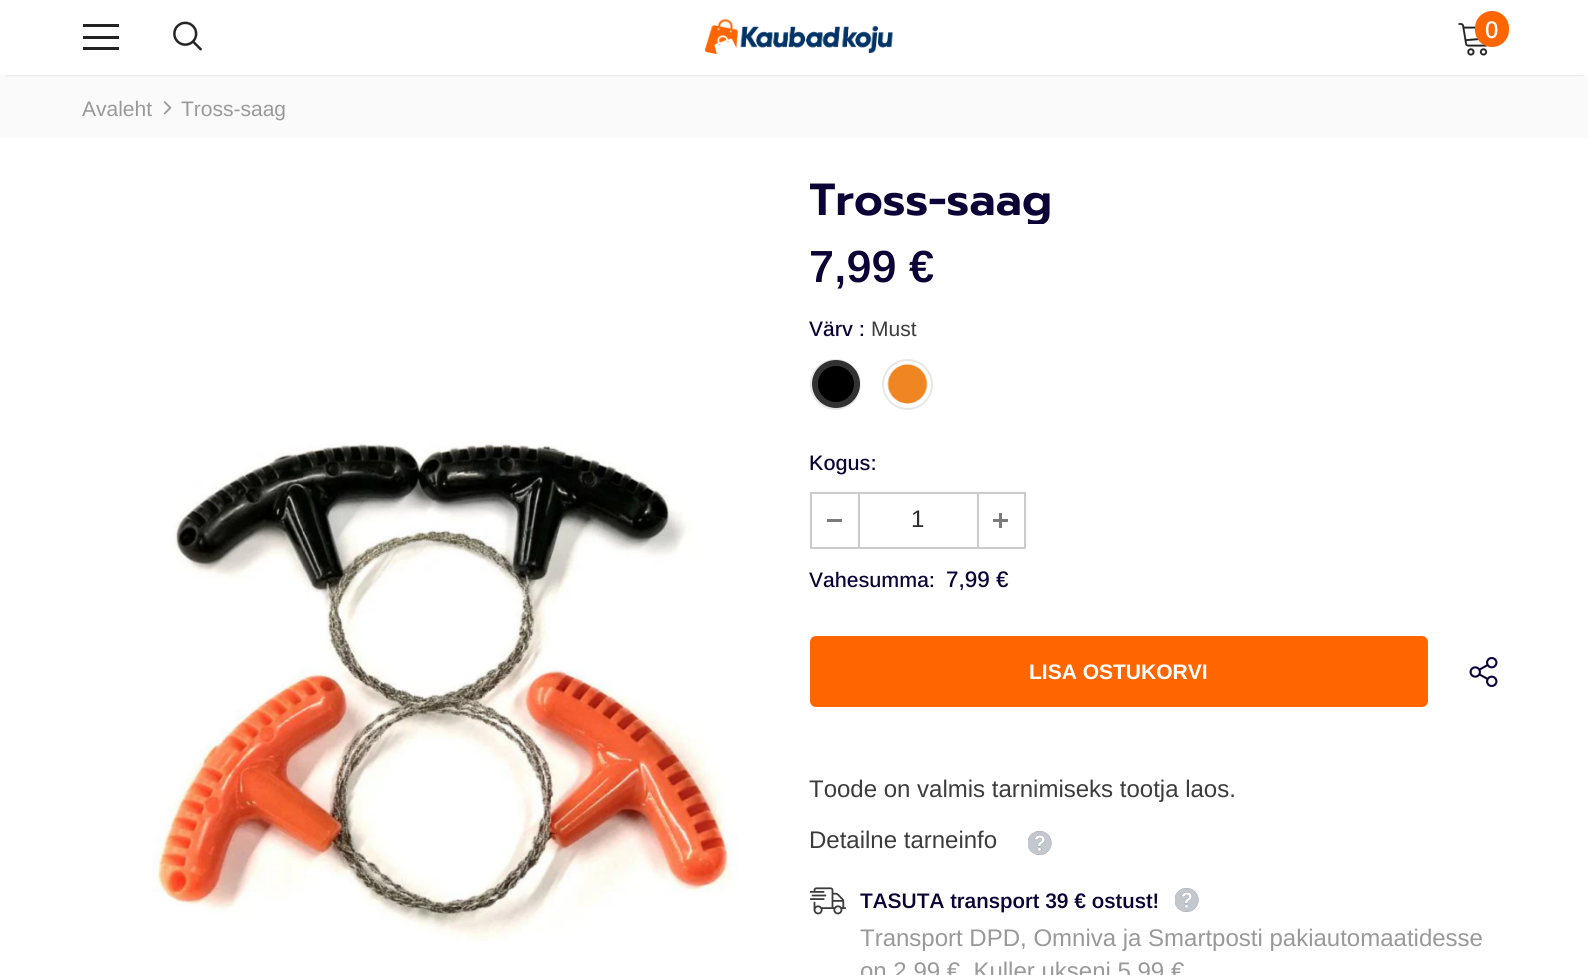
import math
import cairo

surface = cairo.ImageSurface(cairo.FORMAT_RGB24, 1588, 975)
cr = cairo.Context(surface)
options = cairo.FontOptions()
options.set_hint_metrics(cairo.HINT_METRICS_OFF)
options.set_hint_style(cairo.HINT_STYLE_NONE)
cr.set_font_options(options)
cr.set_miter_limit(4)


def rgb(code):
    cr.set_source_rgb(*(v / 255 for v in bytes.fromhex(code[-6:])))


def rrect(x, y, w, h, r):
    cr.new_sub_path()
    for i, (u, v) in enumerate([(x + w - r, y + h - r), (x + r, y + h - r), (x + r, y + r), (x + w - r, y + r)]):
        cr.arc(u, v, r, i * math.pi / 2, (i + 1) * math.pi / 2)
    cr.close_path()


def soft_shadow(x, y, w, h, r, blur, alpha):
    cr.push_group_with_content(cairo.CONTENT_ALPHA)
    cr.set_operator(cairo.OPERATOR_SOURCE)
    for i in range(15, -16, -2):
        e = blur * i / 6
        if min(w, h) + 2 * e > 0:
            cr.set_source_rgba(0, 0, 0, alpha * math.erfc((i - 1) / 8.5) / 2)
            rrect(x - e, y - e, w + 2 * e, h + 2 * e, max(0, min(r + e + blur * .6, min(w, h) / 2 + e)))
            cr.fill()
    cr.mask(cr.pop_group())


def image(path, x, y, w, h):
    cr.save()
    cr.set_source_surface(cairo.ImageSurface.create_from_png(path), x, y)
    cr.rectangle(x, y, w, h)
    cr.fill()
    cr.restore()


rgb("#ffffff")
cr.paint()
rgb("#fafafa")
cr.rectangle(0, 75, 1588, 63)
cr.fill()
cr.save()
cr.rectangle(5, 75, 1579, 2)
cr.clip()
rgb("#000000")
soft_shadow(5, 9, 1579, 66, 0, 2, 0.12)
cr.restore()
for x, y, w, h, color in [
    (83, 24, 36, 3, "#232323"),
    (83, 36, 36, 3, "#232323"),
    (83, 47, 36, 3, "#232323"),
]:
    rgb(color)
    cr.rectangle(x, y, w, h)
    cr.fill()
image("img/1.png", 173, 21, 29, 30)
image("img/2.png", 705, 19, 188, 35)
image("img/3.png", 1458, 23, 30, 33)
rgb("#ff6600")
rrect(1475, 11, 34, 36, 17)
cr.fill()
image("img/4.png", 163, 101, 9, 14)
image("img/5.png", 152, 442, 586, 499)
cr.arc(835.5, 384.5, 24.5, 0, 2 * math.pi)
rgb("#e7e7e7")
cr.stroke()
image("img/6.png", 818, 366, 36, 36)
cr.arc(836, 384, 21, 0, 2 * math.pi)
rgb("#323232")
cr.set_line_width(6)
cr.stroke()
cr.arc(907.5, 384.5, 24.5, 0, 2 * math.pi)
rgb("#e7e7e7")
cr.set_line_width(2)
cr.stroke()
image("img/7.png", 887, 364, 41, 40)
cr.rectangle(811, 493, 214, 55)
rgb("#cbcbcb")
cr.stroke()
for x, y, w, h, color in [
    (858, 494, 2, 54, "#cbcbcb"),
    (827, 519, 15, 3, "#7b7b7b"),
    (977, 494, 2, 54, "#cbcbcb"),
    (993, 519, 15, 3, "#7b7b7b"),
    (999, 513, 3, 15, "#7b7b7b"),
]:
    rgb(color)
    cr.rectangle(x, y, w, h)
    cr.fill()
rgb("#ff6600")
rrect(811, 637, 616, 69, 5)
cr.fill_preserve()
cr.stroke()
image("img/8.png", 1469, 657, 29, 30)
image("img/9.png", 1028, 831, 24, 24)
image("img/10.png", 810, 887, 36, 28)
image("img/9.png", 1175, 888, 24, 24)
cr.select_font_face("Arimo Medium")
cr.set_font_size(24)
rgb("#ffffff")
cr.move_to(1485, 38)
cr.show_text("0")
cr.select_font_face("Arimo")
cr.set_font_size(21)
rgb("#999999")
cr.move_to(82, 116)
cr.show_text("Avaleht")
cr.move_to(181, 116)
cr.show_text("Tross-saag")
cr.save()
cr.rectangle(810, 176, 698, 48)
cr.clip()
cr.select_font_face("Prompt SemiBold")
cr.set_font_size(45)
rgb("#0b0335")
cr.move_to(809, 215)
cr.show_text("Tross-saag")
cr.restore()
cr.select_font_face("Arimo SemiBold")
cr.set_font_size(45)
rgb("#0b0335")
cr.move_to(809, 282)
cr.show_text("7,99 €")
cr.select_font_face("Arimo Medium")
cr.set_font_size(21)
cr.move_to(809, 336)
cr.show_text("Värv :")
cr.select_font_face("Arimo")
rgb("#3c3c3c")
cr.move_to(871, 336)
cr.show_text("Must")
cr.select_font_face("Arimo Medium")
rgb("#0b0335")
cr.move_to(809, 470)
cr.show_text("Kogus:")
cr.select_font_face("Arimo")
cr.set_font_size(24)
rgb("#2d2d2d")
cr.move_to(911, 527)
cr.show_text("1")
cr.select_font_face("Arimo Medium")
cr.set_font_size(21)
rgb("#0b0335")
cr.move_to(809, 587)
cr.show_text("Vahesumma:")
cr.set_font_size(22.5)
cr.move_to(946, 587)
cr.show_text("7,99 €")
cr.select_font_face("Arimo", cairo.FONT_SLANT_NORMAL, cairo.FONT_WEIGHT_BOLD)
cr.set_font_size(21)
rgb("#ffffff")
cr.move_to(1029, 679)
cr.show_text("LISA OSTUKORVI")
cr.select_font_face("Arimo")
cr.set_font_size(24)
rgb("#3c3c3c")
cr.move_to(809, 797)
cr.show_text("Toode on valmis tarnimiseks tootja laos.")
cr.move_to(809, 848)
cr.show_text("Detailne tarneinfo")
cr.select_font_face("Arimo SemiBold")
cr.set_font_size(21)
rgb("#0b0335")
cr.move_to(860, 908)
cr.show_text("TASUTA transport 39 € ostust!")
cr.select_font_face("Arimo")
cr.set_font_size(24)
rgb("#999999")
cr.move_to(860, 946)
cr.show_text("Transport DPD, Omniva ja Smartposti pakiautomaatidesse")
cr.move_to(860, 979)
cr.show_text("on 2,99 €. Kuller ukseni 5,99 €")
surface.write_to_png("page.png")
